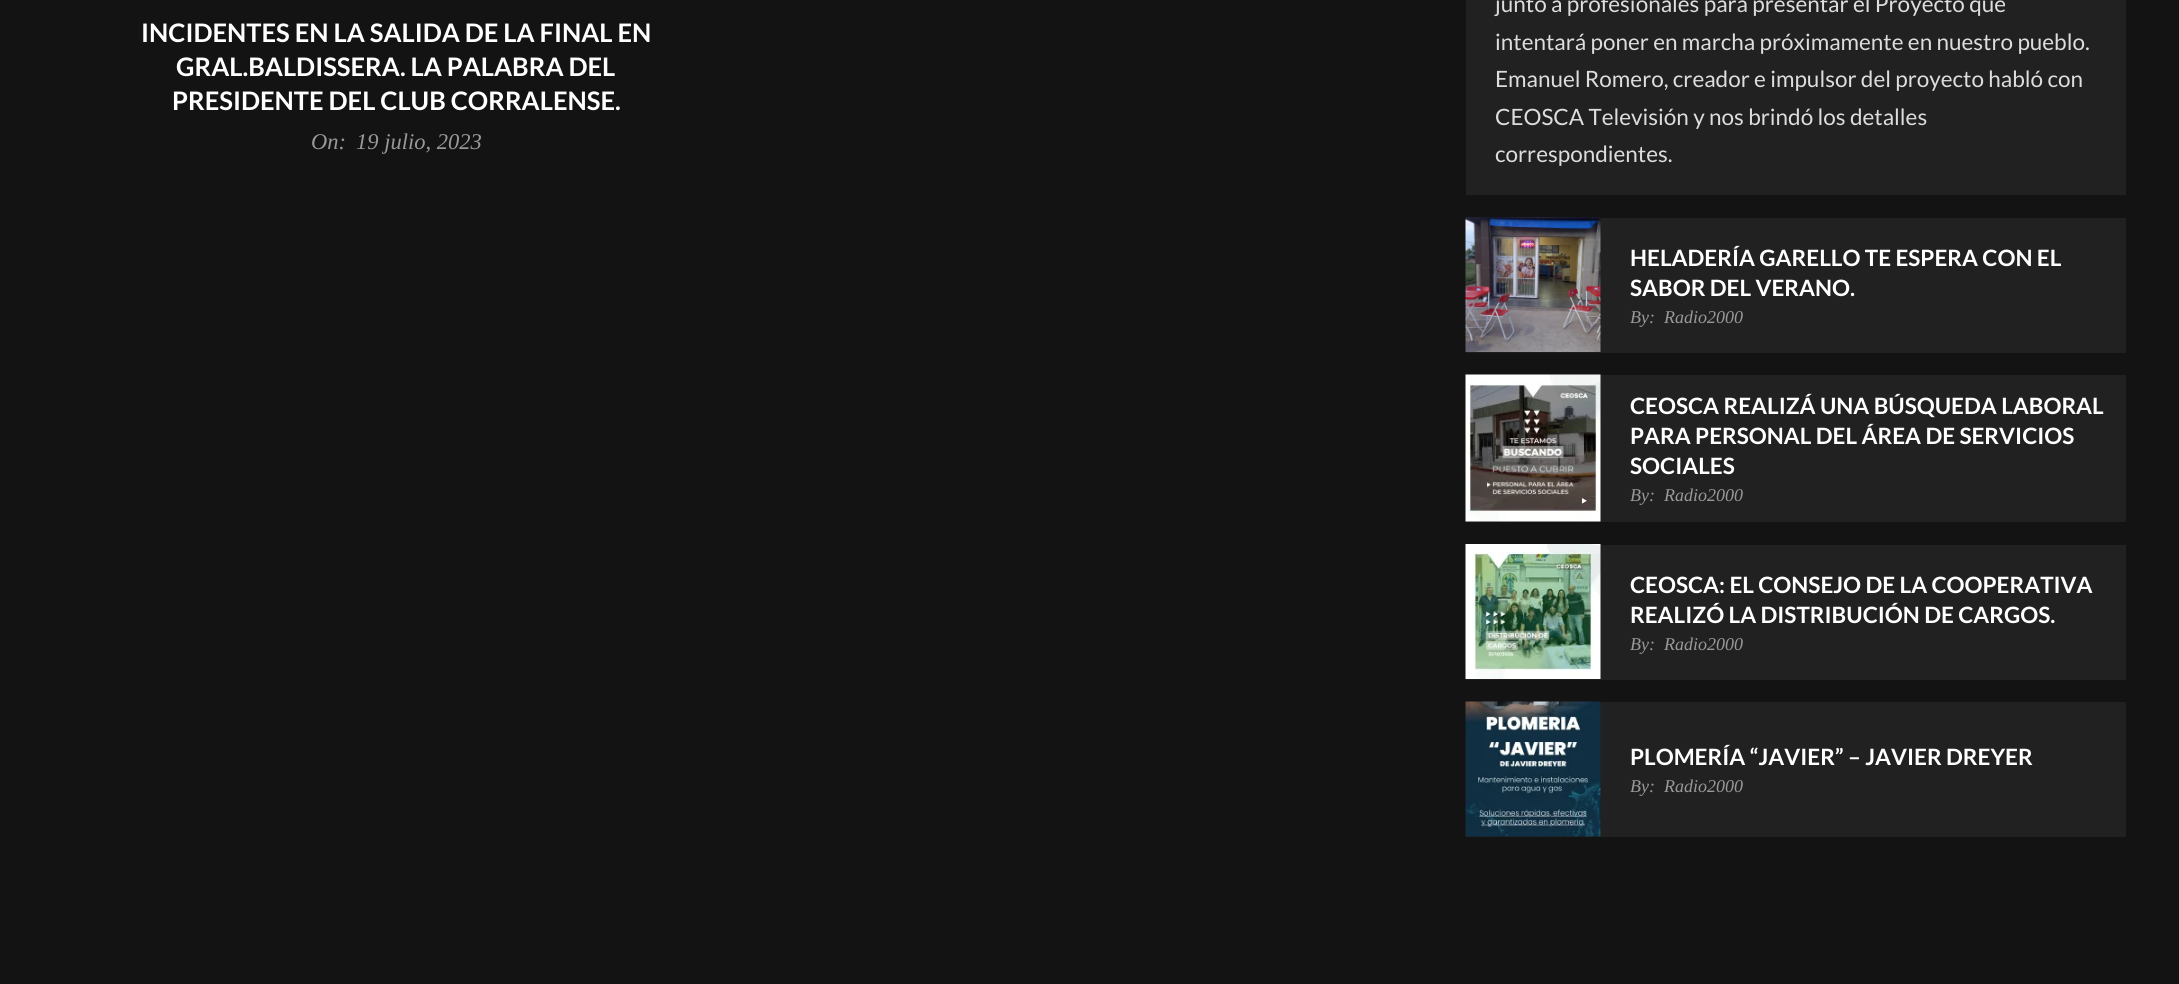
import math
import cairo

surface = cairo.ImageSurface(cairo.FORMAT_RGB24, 2179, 984)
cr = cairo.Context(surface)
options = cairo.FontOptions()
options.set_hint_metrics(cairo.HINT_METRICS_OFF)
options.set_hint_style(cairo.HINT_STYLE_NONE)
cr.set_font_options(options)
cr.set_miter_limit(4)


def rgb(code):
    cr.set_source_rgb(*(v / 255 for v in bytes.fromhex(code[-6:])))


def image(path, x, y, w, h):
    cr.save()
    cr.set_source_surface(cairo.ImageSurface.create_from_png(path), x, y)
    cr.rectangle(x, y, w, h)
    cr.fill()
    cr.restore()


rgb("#131313")
cr.paint()
for x, y, w, h, color in [
    (1466, 0, 660, 195, "#212121"),
    (1601, 218, 525, 135, "#212121"),
    (1466, 218, 135, 135, "#1e1e1e"),
]:
    rgb(color)
    cr.rectangle(x, y, w, h)
    cr.fill()
image("img/1.png", 1465, 217, 136, 135)
rgb("#212121")
cr.rectangle(1601, 375, 525, 147)
cr.fill()
rgb("#1e1e1e")
cr.rectangle(1466, 375, 135, 147)
cr.fill()
image("img/2.png", 1465, 374, 136, 148)
rgb("#212121")
cr.rectangle(1601, 545, 525, 135)
cr.fill()
rgb("#1e1e1e")
cr.rectangle(1466, 545, 135, 135)
cr.fill()
image("img/3.png", 1465, 544, 136, 135)
rgb("#212121")
cr.rectangle(1601, 702, 525, 135)
cr.fill()
rgb("#1e1e1e")
cr.rectangle(1466, 702, 135, 135)
cr.fill()
image("img/4.png", 1465, 701, 136, 136)
cr.select_font_face("Lato", cairo.FONT_SLANT_NORMAL, cairo.FONT_WEIGHT_BOLD)
cr.set_font_size(25.5)
rgb("#ffffff")
for x, y, s in [
    (141, 42, "INCIDENTES EN LA SALIDA DE LA FINAL EN"),
    (176, 76, "GRAL.BALDISSERA. LA PALABRA DEL"),
    (172, 110, "PRESIDENTE DEL CLUB CORRALENSE."),
]:
    cr.move_to(x, y)
    cr.show_text(s)
cr.select_font_face("Liberation Serif", cairo.FONT_SLANT_ITALIC)
cr.set_font_size(22.5)
rgb("#999999")
cr.move_to(311, 149)
cr.show_text("On:")
cr.move_to(356, 149)
cr.show_text("19 julio, 2023")
cr.select_font_face("Lato")
rgb("#dddddd")
for x, y, s in [
    (1495, 12, "junto a profesionales para presentar el Proyecto que"),
    (1495, 50, "intentará poner en marcha próximamente en nuestro pueblo."),
    (1495, 87, "Emanuel Romero, creador e impulsor del proyecto habló con"),
    (1495, 125, "CEOSCA Televisión y nos brindó los detalles"),
    (1495, 162, "correspondientes."),
]:
    cr.move_to(x, y)
    cr.show_text(s)
cr.select_font_face("Lato", cairo.FONT_SLANT_NORMAL, cairo.FONT_WEIGHT_BOLD)
rgb("#ffffff")
cr.move_to(1630, 266)
cr.show_text("HELADERÍA GARELLO TE ESPERA CON EL")
cr.move_to(1630, 296)
cr.show_text("SABOR DEL VERANO.")
cr.select_font_face("Liberation Serif", cairo.FONT_SLANT_ITALIC)
cr.set_font_size(18)
rgb("#999999")
cr.move_to(1630, 323)
cr.show_text("By:")
cr.move_to(1664, 323)
cr.show_text("Radio2000")
cr.select_font_face("Lato", cairo.FONT_SLANT_NORMAL, cairo.FONT_WEIGHT_BOLD)
cr.set_font_size(22.5)
rgb("#ffffff")
for x, y, s in [
    (1630, 414, "CEOSCA REALIZÁ UNA BÚSQUEDA LABORAL"),
    (1630, 444, "PARA PERSONAL DEL ÁREA DE SERVICIOS"),
    (1630, 474, "SOCIALES"),
]:
    cr.move_to(x, y)
    cr.show_text(s)
cr.select_font_face("Liberation Serif", cairo.FONT_SLANT_ITALIC)
cr.set_font_size(18)
rgb("#999999")
cr.move_to(1630, 501)
cr.show_text("By:")
cr.move_to(1664, 501)
cr.show_text("Radio2000")
cr.select_font_face("Lato", cairo.FONT_SLANT_NORMAL, cairo.FONT_WEIGHT_BOLD)
cr.set_font_size(22.5)
rgb("#ffffff")
cr.move_to(1630, 593)
cr.show_text("CEOSCA: EL CONSEJO DE LA COOPERATIVA")
cr.move_to(1630, 623)
cr.show_text("REALIZÓ LA DISTRIBUCIÓN DE CARGOS.")
cr.select_font_face("Liberation Serif", cairo.FONT_SLANT_ITALIC)
cr.set_font_size(18)
rgb("#999999")
cr.move_to(1630, 650)
cr.show_text("By:")
cr.move_to(1664, 650)
cr.show_text("Radio2000")
cr.select_font_face("Lato", cairo.FONT_SLANT_NORMAL, cairo.FONT_WEIGHT_BOLD)
cr.set_font_size(22.5)
rgb("#ffffff")
cr.move_to(1630, 765)
cr.show_text("PLOMERÍA “JAVIER” – JAVIER DREYER")
cr.select_font_face("Liberation Serif", cairo.FONT_SLANT_ITALIC)
cr.set_font_size(18)
rgb("#999999")
cr.move_to(1630, 792)
cr.show_text("By:")
cr.move_to(1664, 792)
cr.show_text("Radio2000")
surface.write_to_png("page.png")
